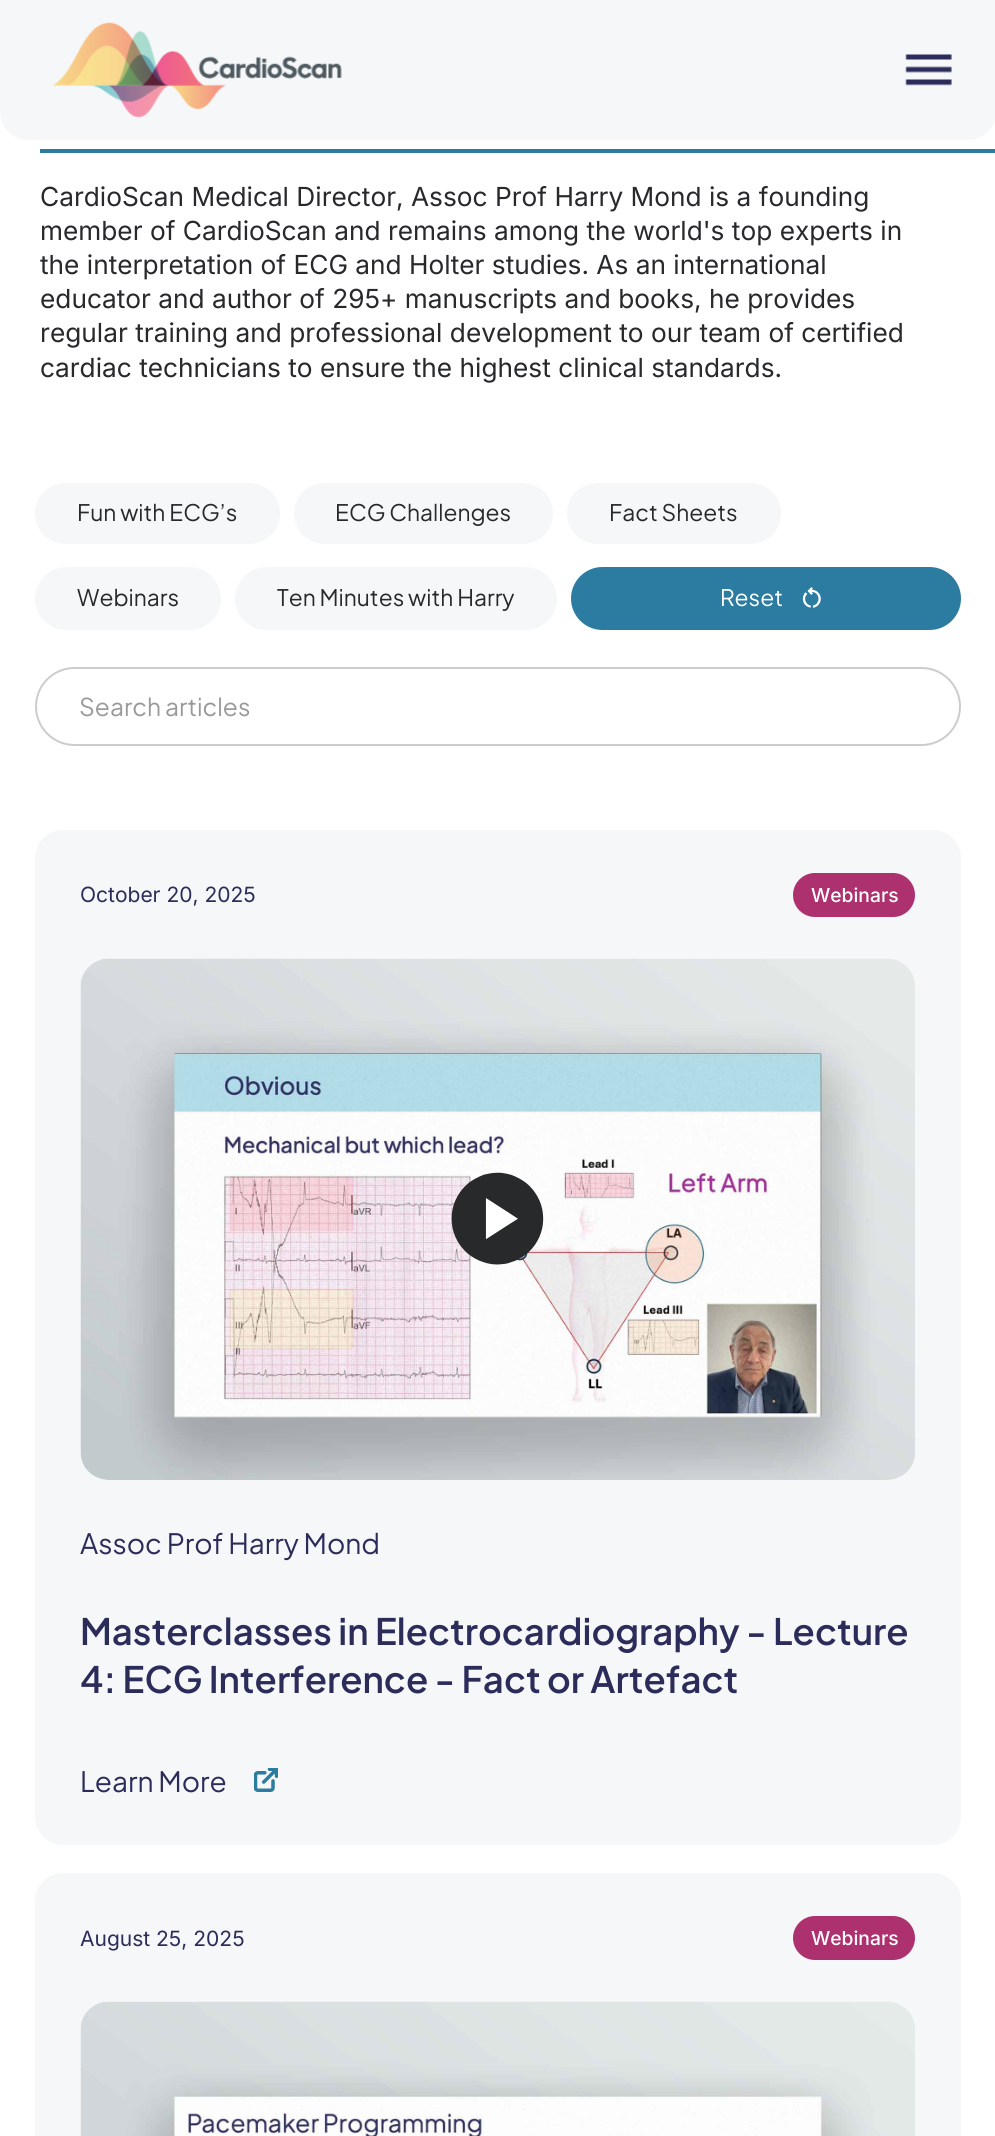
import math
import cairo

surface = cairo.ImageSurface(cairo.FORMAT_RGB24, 995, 2136)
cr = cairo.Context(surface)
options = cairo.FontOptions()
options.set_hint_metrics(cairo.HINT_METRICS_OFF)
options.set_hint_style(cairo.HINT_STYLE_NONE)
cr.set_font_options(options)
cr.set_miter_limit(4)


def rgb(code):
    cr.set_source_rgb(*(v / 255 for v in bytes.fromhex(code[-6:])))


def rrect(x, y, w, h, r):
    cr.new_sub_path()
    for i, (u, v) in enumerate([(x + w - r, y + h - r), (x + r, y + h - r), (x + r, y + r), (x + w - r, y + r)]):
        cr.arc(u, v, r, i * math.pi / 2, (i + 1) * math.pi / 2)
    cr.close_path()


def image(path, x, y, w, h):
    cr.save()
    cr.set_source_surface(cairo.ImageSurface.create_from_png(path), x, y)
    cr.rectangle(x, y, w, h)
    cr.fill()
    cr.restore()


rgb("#ffffff")
cr.paint()
rgb("#f6f7f8")
cr.new_path()
cr.move_to(0, 0)
cr.line_to(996, 0)
cr.line_to(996, 112)
cr.curve_to(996, 127.5, 983.5, 140, 968, 140)
cr.line_to(28, 140)
cr.curve_to(12.5, 140, 0, 127.5, 0, 112)
cr.close_path()
cr.fill()
image("img/1.png", 52, 22, 290, 96)
image("img/2.png", 905, 54, 47, 32)
rgb("#2b7ca0")
cr.rectangle(40, 149, 955, 4)
cr.fill()
rgb("#f6f7f8")
rrect(35, 483, 245, 61, 30.5)
cr.fill()
rrect(294, 483, 259, 61, 30.5)
cr.fill()
rrect(567, 483, 214, 61, 30.5)
cr.fill()
rrect(35, 567, 186, 63, 31.5)
cr.fill()
rrect(235, 567, 322, 63, 31.5)
cr.fill()
rgb("#2b7ca0")
rrect(571, 567, 390, 63, 31.5)
cr.fill()
image("img/3.png", 802, 587, 19, 21)
rrect(36, 668, 924, 77, 38.5)
rgb("#cccccc")
cr.stroke()
rgb("#f6f7f8")
rrect(35, 830, 926, 1015, 28)
cr.fill()
rgb("#ad316f")
rrect(793, 873, 122, 44, 22)
cr.fill()
image("img/4.png", 80, 958, 835, 522)
image("img/5.png", 451, 1172, 93, 93)
image("img/6.png", 254, 1768, 24, 24)
rgb("#f6f7f8")
rrect(35, 1873, 926, 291, 28)
cr.fill()
rgb("#ad316f")
rrect(793, 1916, 122, 44, 22)
cr.fill()
image("img/7.png", 80, 2001, 835, 135)
cr.select_font_face("Inter")
cr.set_font_size(26.25)
rgb("#27292b")
for x, y, s in [
    (40, 206, "CardioScan Medical Director, Assoc Prof Harry Mond is a founding"),
    (40, 240, "member of CardioScan and remains among the world's top experts in"),
    (40, 274, "the interpretation of ECG and Holter studies. As an international"),
    (40, 308, "educator and author of 295+ manuscripts and books, he provides"),
    (40, 342, "regular training and professional development to our team of certified"),
    (40, 377, "cardiac technicians to ensure the highest clinical standards."),
]:
    cr.move_to(x, y)
    cr.show_text(s)
cr.select_font_face("Plus Jakarta Sans")
cr.set_font_size(22.75)
for x, y, s in [
    (77, 521, "Fun with ECG’s"),
    (335, 521, "ECG Challenges"),
    (609, 521, "Fact Sheets"),
    (77, 606, "Webinars"),
    (277, 606, "Ten Minutes with Harry"),
]:
    cr.move_to(x, y)
    cr.show_text(s)
rgb("#ffffff")
cr.move_to(720, 606)
cr.show_text("Reset")
cr.set_font_size(24.5)
rgb("#999999")
cr.move_to(79, 716)
cr.show_text("Search articles")
cr.select_font_face("Inter")
cr.set_font_size(21)
rgb("#2c2c5b")
cr.move_to(80, 902)
cr.show_text("October 20, 2025")
cr.select_font_face("Inter Medium")
cr.set_font_size(19.25)
rgb("#ffffff")
cr.move_to(811, 902)
cr.show_text("Webinars")
cr.select_font_face("Plus Jakarta Sans")
cr.set_font_size(28)
rgb("#2c2c5b")
cr.move_to(80, 1554)
cr.show_text("Assoc Prof Harry Mond")
cr.select_font_face("Plus Jakarta Sans SemiBold")
cr.set_font_size(36.4)
cr.move_to(80, 1645)
cr.show_text("Masterclasses in Electrocardiography - Lecture")
cr.move_to(80, 1693)
cr.show_text("4: ECG Interference - Fact or Artefact")
cr.select_font_face("Plus Jakarta Sans")
cr.set_font_size(28)
cr.move_to(80, 1792)
cr.show_text("Learn More")
cr.select_font_face("Inter")
cr.set_font_size(21)
cr.move_to(80, 1946)
cr.show_text("August 25, 2025")
cr.select_font_face("Inter Medium")
cr.set_font_size(19.25)
rgb("#ffffff")
cr.move_to(811, 1945)
cr.show_text("Webinars")
surface.write_to_png("page.png")
